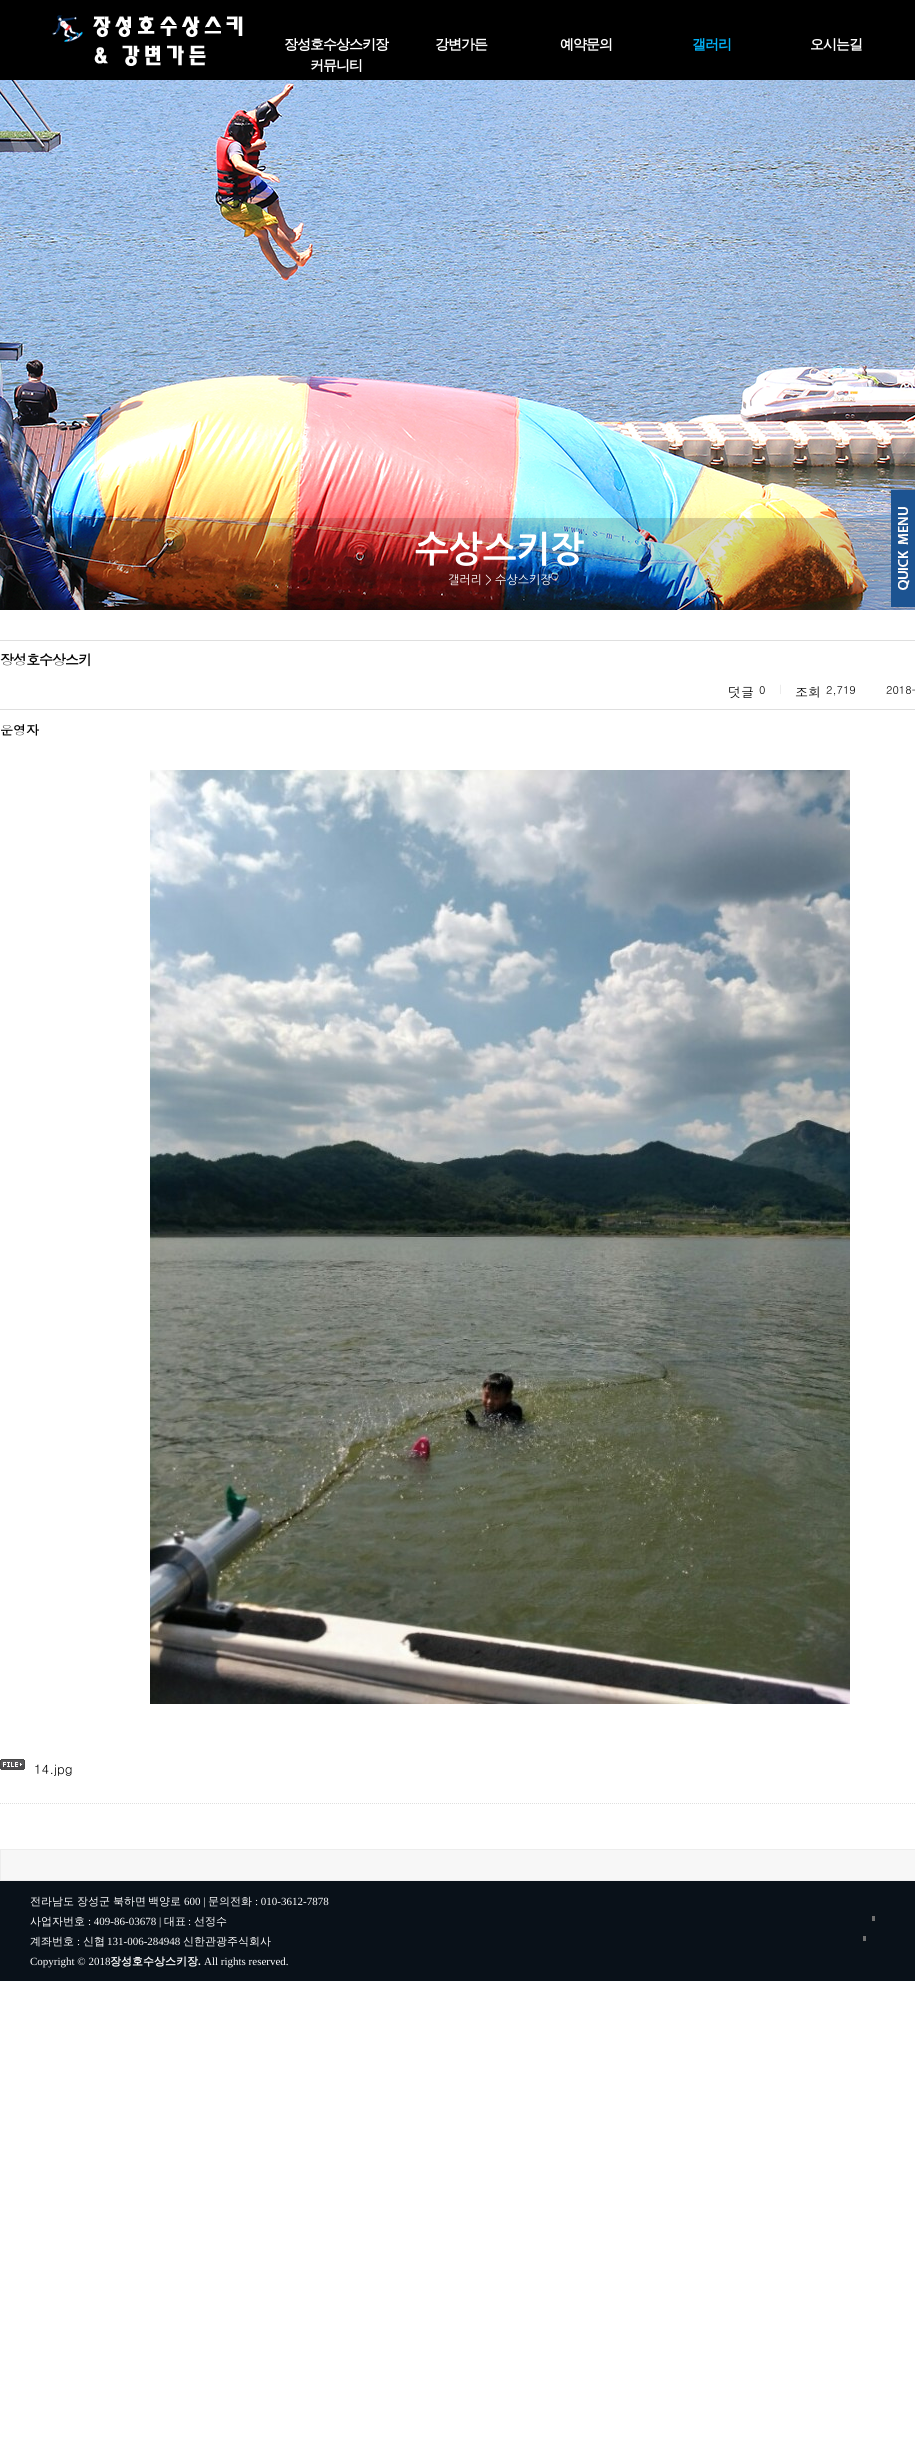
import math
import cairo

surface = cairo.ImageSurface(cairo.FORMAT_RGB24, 915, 2449)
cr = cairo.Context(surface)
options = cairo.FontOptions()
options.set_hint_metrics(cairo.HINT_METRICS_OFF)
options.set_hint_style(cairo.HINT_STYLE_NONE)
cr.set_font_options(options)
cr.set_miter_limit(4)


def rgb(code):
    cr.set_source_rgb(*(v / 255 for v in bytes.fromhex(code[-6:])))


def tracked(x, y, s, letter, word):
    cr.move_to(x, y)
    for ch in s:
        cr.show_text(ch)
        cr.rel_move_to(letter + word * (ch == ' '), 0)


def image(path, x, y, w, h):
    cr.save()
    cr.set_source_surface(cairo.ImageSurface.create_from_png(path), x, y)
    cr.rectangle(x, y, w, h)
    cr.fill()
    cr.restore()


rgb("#ffffff")
cr.paint()
rgb("#000000")
cr.rectangle(0, 0, 915, 80)
cr.fill()
image("img/1.png", 52, 15, 191, 51)
image("img/2.png", 0, 80, 915, 530)
cr.set_source_rgba(0, 0, 0, 0.16)
cr.rectangle(0, 518, 915, 92)
cr.fill()
image("img/3.png", 891, 490, 24, 117)
rgb("#dfdfdf")
cr.rectangle(0, 640, 915, 1)
cr.fill()
cr.rectangle(0, 709, 915, 1)
cr.fill()
image("img/4.png", 150, 770, 700, 934)
image("img/5.png", 0, 1759, 25, 11)
cr.new_path()
cr.move_to(0, 1803.5)
cr.line_to(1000, 1803.5)
cr.set_line_width(1)
cr.set_dash([1, 1])
cr.stroke()
cr.rectangle(0.5, 1849.5, 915, 31)
rgb("#ededed")
cr.set_dash([])
cr.stroke()
for x, y, w, h, color in [
    (1, 1850, 914, 30, "#f7f7f7"),
    (0, 1881, 915, 100, "#091119"),
    (872, 1916, 3, 5, "#707070"),
    (863, 1936, 3, 5, "#707070"),
]:
    rgb(color)
    cr.rectangle(x, y, w, h)
    cr.fill()
cr.select_font_face("WenQuanYi Zen Hei", cairo.FONT_SLANT_NORMAL, cairo.FONT_WEIGHT_BOLD)
cr.set_font_size(14)
rgb("#ffffff")
for x, y, s in [
    (284, 49, "장성호수상스키장"),
    (435, 49, "강변가든"),
    (560, 49, "예약문의"),
]:
    tracked(x, y, s, -1, 0)
rgb("#01b0f6")
tracked(692, 49, "갤러리", -1, 0)
rgb("#ffffff")
tracked(810, 49, "오시는길", -1, 0)
tracked(310, 70, "커뮤니티", -1, 0)
cr.select_font_face("NanumGothic", cairo.FONT_SLANT_NORMAL, cairo.FONT_WEIGHT_BOLD)
cr.set_font_size(36)
cr.move_to(415, 562)
cr.show_text("수상스키장")
cr.select_font_face("NanumGothic")
cr.set_font_size(12)
cr.move_to(448, 584)
cr.show_text("갤러리 > 수상스키장")
cr.select_font_face("Dotum", cairo.FONT_SLANT_NORMAL, cairo.FONT_WEIGHT_BOLD)
cr.set_font_size(14)
rgb("#000000")
tracked(0, 665, "장성호수상스키", -1, 0)
cr.select_font_face("Dotum")
cr.set_font_size(13)
cr.move_to(728, 697)
cr.show_text("덧글")
cr.set_font_size(11)
cr.move_to(759, 694)
cr.show_text("0")
cr.set_font_size(10)
rgb("#dfdfdf")
cr.move_to(778, 693)
cr.show_text("|")
cr.set_font_size(13)
rgb("#000000")
cr.move_to(795, 697)
cr.show_text("조회")
cr.set_font_size(11)
cr.move_to(826, 694)
cr.show_text("2,719")
cr.move_to(886, 694)
cr.show_text("2018-")
cr.select_font_face("Dotum", cairo.FONT_SLANT_NORMAL, cairo.FONT_WEIGHT_BOLD)
cr.set_font_size(13)
cr.move_to(0, 735)
cr.show_text("운영자")
cr.select_font_face("Dotum")
cr.move_to(34, 1774)
cr.show_text("14.jpg")
cr.select_font_face("WenQuanYi Zen Hei Medium")
cr.set_font_size(11)
rgb("#ffffff")
for x, y, s in [
    (30, 1905, "전라남도"),
    (77, 1905, "장성군"),
    (113, 1905, "북하면"),
    (148, 1905, "백양로"),
]:
    cr.move_to(x, y)
    cr.show_text(s)
cr.select_font_face("Liberation Serif")
cr.move_to(184, 1905)
cr.show_text("600 |")
cr.select_font_face("WenQuanYi Zen Hei Medium")
cr.move_to(208, 1905)
cr.show_text("문의전화")
cr.select_font_face("Liberation Serif")
cr.move_to(255, 1905)
cr.show_text(": 010-3612-7878")
cr.select_font_face("WenQuanYi Zen Hei Medium")
cr.move_to(30, 1925)
cr.show_text("사업자번호")
cr.select_font_face("Liberation Serif")
cr.move_to(88, 1925)
cr.show_text(": 409-86-03678 |")
cr.select_font_face("WenQuanYi Zen Hei Medium")
cr.move_to(164, 1925)
cr.show_text("대표")
cr.select_font_face("Liberation Serif")
cr.move_to(188, 1925)
cr.show_text(":")
cr.select_font_face("WenQuanYi Zen Hei Medium")
cr.move_to(194, 1925)
cr.show_text("선정수")
cr.move_to(30, 1945)
cr.show_text("계좌번호")
cr.select_font_face("Liberation Serif")
cr.move_to(77, 1945)
cr.show_text(":")
cr.select_font_face("WenQuanYi Zen Hei Medium")
cr.move_to(83, 1945)
cr.show_text("신협")
cr.select_font_face("Liberation Serif")
cr.move_to(107, 1945)
cr.show_text("131-006-284948")
cr.select_font_face("WenQuanYi Zen Hei Medium")
cr.move_to(183, 1945)
cr.show_text("신한관광주식회사")
cr.select_font_face("Liberation Serif")
cr.move_to(30, 1965)
cr.show_text("Copyright © 2018")
cr.select_font_face("WenQuanYi Zen Hei", cairo.FONT_SLANT_NORMAL, cairo.FONT_WEIGHT_BOLD)
cr.move_to(110, 1965)
cr.show_text("장성호수상스키장")
cr.select_font_face("Liberation Serif", cairo.FONT_SLANT_NORMAL, cairo.FONT_WEIGHT_BOLD)
cr.move_to(198, 1965)
cr.show_text(".")
cr.select_font_face("Liberation Serif")
cr.move_to(204, 1965)
cr.show_text("All rights reserved.")
surface.write_to_png("page.png")
